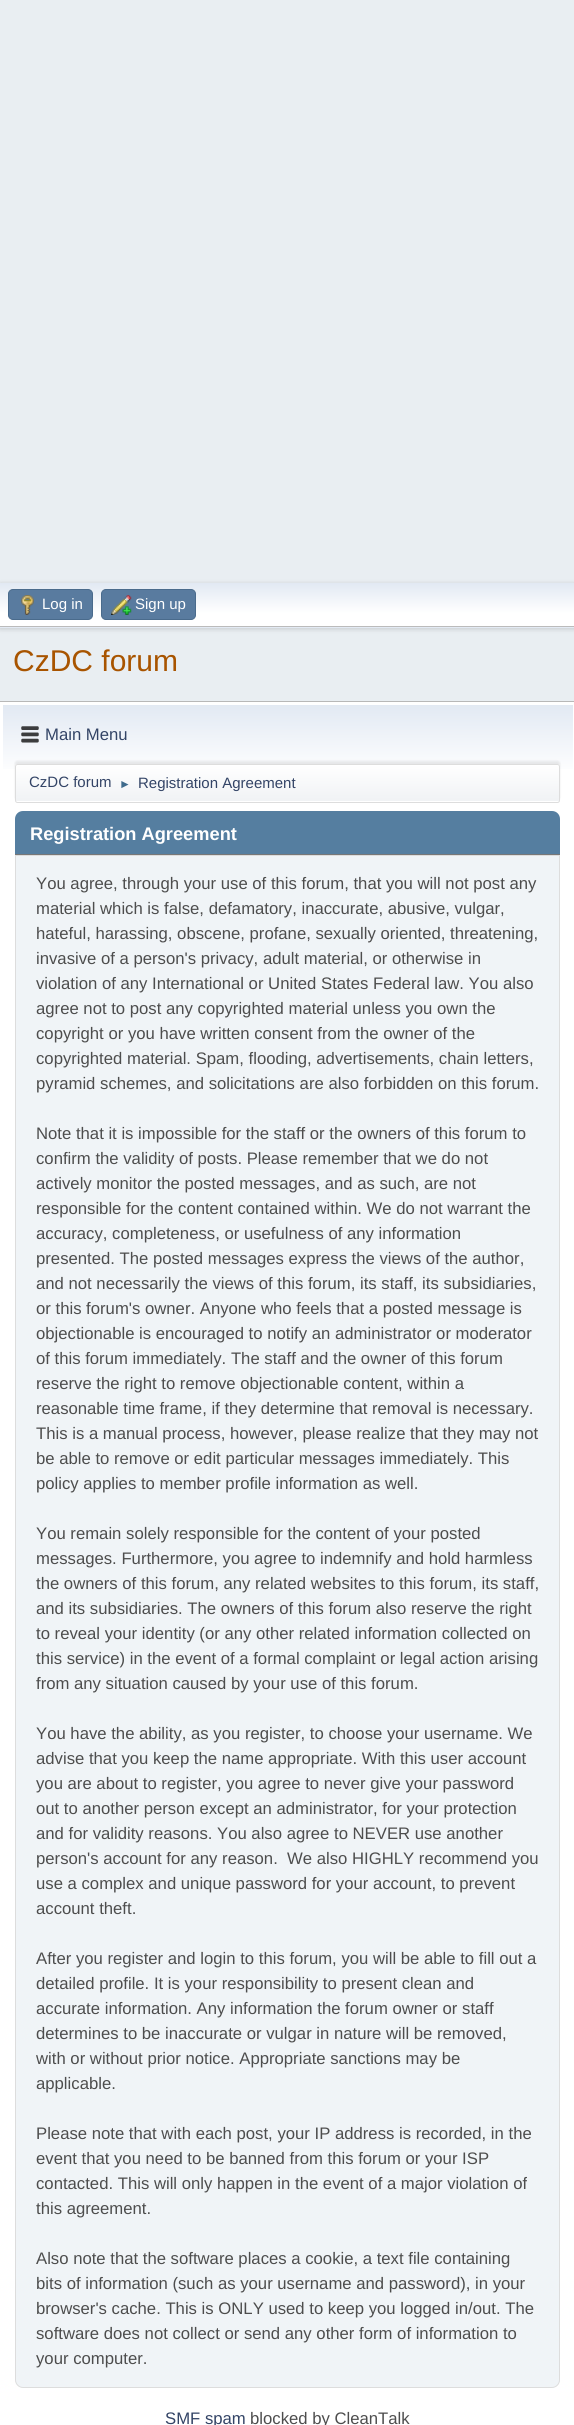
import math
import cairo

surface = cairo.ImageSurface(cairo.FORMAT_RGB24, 574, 2425)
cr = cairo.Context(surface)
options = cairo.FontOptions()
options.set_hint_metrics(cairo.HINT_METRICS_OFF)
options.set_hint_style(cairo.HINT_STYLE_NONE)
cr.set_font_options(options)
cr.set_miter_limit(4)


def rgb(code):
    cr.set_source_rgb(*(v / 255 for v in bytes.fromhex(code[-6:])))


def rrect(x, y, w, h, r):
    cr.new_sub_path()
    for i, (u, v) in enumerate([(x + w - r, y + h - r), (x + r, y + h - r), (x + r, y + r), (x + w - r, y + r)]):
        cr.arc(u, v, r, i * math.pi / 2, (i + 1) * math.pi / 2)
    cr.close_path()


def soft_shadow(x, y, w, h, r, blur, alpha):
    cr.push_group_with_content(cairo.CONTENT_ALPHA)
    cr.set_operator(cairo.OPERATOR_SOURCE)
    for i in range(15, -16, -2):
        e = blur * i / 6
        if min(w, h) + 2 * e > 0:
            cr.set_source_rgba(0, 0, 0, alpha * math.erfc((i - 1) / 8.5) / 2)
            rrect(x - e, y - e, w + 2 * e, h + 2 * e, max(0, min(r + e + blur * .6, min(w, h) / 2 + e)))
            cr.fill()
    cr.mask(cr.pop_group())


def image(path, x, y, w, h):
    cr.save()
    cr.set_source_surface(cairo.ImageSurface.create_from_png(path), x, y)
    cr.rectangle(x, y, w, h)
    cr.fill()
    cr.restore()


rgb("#e9eef2")
cr.paint()
rgb("#000000")
soft_shadow(0, 584, 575, 45, 0, 2.5, 0.16)
gradient = cairo.LinearGradient(288, 583, 288, 626)
gradient.add_color_stop_rgba(0, 0.886, 0.914, 0.953, 1)
gradient.add_color_stop_rgba(0.7, 1, 1, 1, 1)
cr.set_source(gradient)
cr.rectangle(0, 583, 574, 43)
cr.fill()
gradient = cairo.LinearGradient(288, 626, 288, 670)
gradient.add_color_stop_rgba(0, 0.886, 0.914, 0.953, 1)
gradient.add_color_stop_rgba(0.7, 1, 1, 1, 1)
cr.set_source(gradient)
cr.rectangle(0, 627, 574, 1)
cr.fill()
rgb("#bbbbbb")
cr.rectangle(0, 626, 574, 1)
cr.fill()
rgb("#597b9f")
rrect(8.5, 589.5, 84, 30, 4.5)
cr.fill_preserve()
rgb("#4a6b8c")
cr.set_line_width(1)
cr.stroke()
image("img/1.png", 21, 595, 13, 20)
rgb("#597b9f")
rrect(101.5, 589.5, 94, 30, 4.5)
cr.fill_preserve()
rgb("#4a6b8c")
cr.stroke()
image("img/2.png", 111, 595, 21, 20)
rgb("#ffffff")
cr.rectangle(0, 702, 574, 1723)
cr.fill()
rgb("#b8b8b8")
cr.rectangle(0, 701, 574, 1)
cr.fill()
gradient = cairo.LinearGradient(288, 705, 288, 805)
gradient.add_color_stop_rgba(0, 0.886, 0.914, 0.953, 1)
gradient.add_color_stop_rgba(0.7, 1, 1, 1, 1)
cr.set_source(gradient)
cr.rectangle(3, 705, 570, 64)
cr.fill()
image("img/3.png", 21, 726, 18, 17)
rgb("#000000")
soft_shadow(15, 761, 545, 39, 2.5, 1, 0.08)
rgb("#ffffff")
rrect(15, 764, 545, 39, 2.5)
cr.fill()
gradient = cairo.LinearGradient(288, 765, 288, 801)
gradient.add_color_stop_rgba(0, 1, 1, 1, 1)
gradient.add_color_stop_rgba(0.95, 0.945, 0.953, 0.961, 1)
cr.set_source(gradient)
cr.rectangle(15, 765, 545, 36)
cr.fill()
rrect(15.5, 764.5, 544, 38, 2)
rgb("#dddddd")
cr.stroke()
rgb("#557ea0")
cr.new_path()
cr.move_to(23, 811)
cr.line_to(552, 811)
cr.curve_to(556.5, 811, 560, 814.5, 560, 819)
cr.line_to(560, 855)
cr.line_to(15, 855)
cr.line_to(15, 819)
cr.curve_to(15, 814.5, 18.5, 811, 23, 811)
cr.close_path()
cr.fill()
rgb("#777777")
cr.rectangle(15, 854, 545, 1)
cr.fill()
rgb("#f0f4f7")
cr.new_path()
cr.move_to(15.5, 855.5)
cr.line_to(559.5, 855.5)
cr.line_to(559.5, 2380)
cr.curve_to(559.5, 2384, 556, 2387.5, 552, 2387.5)
cr.line_to(23, 2387.5)
cr.curve_to(19, 2387.5, 15.5, 2384, 15.5, 2380)
cr.close_path()
cr.fill_preserve()
rgb("#dddddd")
cr.stroke()
cr.select_font_face("Liberation Sans")
cr.set_font_size(15)
rgb("#ffffff")
cr.move_to(42, 609)
cr.show_text("Log in")
cr.move_to(135, 609)
cr.show_text("Sign up")
cr.set_font_size(30)
rgb("#a85400")
cr.move_to(13, 671)
cr.show_text("CzDC forum")
cr.set_font_size(16.7)
rgb("#334466")
cr.move_to(45, 740)
cr.show_text("Main Menu")
cr.set_font_size(15)
cr.move_to(29, 787)
cr.show_text("CzDC forum")
cr.set_font_size(12)
rgb("#3f6b8c")
cr.move_to(119, 788)
cr.show_text("►")
cr.set_font_size(15)
rgb("#334466")
cr.move_to(138, 788)
cr.show_text("Registration Agreement")
cr.select_font_face("Liberation Sans", cairo.FONT_SLANT_NORMAL, cairo.FONT_WEIGHT_BOLD)
cr.set_font_size(18.25)
rgb("#ffffff")
cr.move_to(30, 840)
cr.show_text("Registration Agreement")
cr.select_font_face("Liberation Sans")
cr.set_font_size(16.7)
rgb("#4d4d4d")
for x, y, s in [
    (36, 889, "You agree, through your use of this forum, that you will not post any"),
    (36, 914, "material which is false, defamatory, inaccurate, abusive, vulgar,"),
    (36, 939, "hateful, harassing, obscene, profane, sexually oriented, threatening,"),
    (36, 964, "invasive of a person's privacy, adult material, or otherwise in"),
    (36, 989, "violation of any International or United States Federal law. You also"),
    (36, 1014, "agree not to post any copyrighted material unless you own the"),
    (36, 1039, "copyright or you have written consent from the owner of the"),
    (36, 1064, "copyrighted material. Spam, flooding, advertisements, chain letters,"),
    (36, 1089, "pyramid schemes, and solicitations are also forbidden on this forum."),
    (36, 1139, "Note that it is impossible for the staff or the owners of this forum to"),
    (36, 1164, "confirm the validity of posts. Please remember that we do not"),
    (36, 1189, "actively monitor the posted messages, and as such, are not"),
    (36, 1214, "responsible for the content contained within. We do not warrant the"),
    (36, 1239, "accuracy, completeness, or usefulness of any information"),
    (36, 1264, "presented. The posted messages express the views of the author,"),
    (36, 1289, "and not necessarily the views of this forum, its staff, its subsidiaries,"),
    (36, 1314, "or this forum's owner. Anyone who feels that a posted message is"),
    (36, 1339, "objectionable is encouraged to notify an administrator or moderator"),
    (36, 1364, "of this forum immediately. The staff and the owner of this forum"),
    (36, 1389, "reserve the right to remove objectionable content, within a"),
    (36, 1414, "reasonable time frame, if they determine that removal is necessary."),
    (36, 1439, "This is a manual process, however, please realize that they may not"),
    (36, 1464, "be able to remove or edit particular messages immediately. This"),
    (36, 1489, "policy applies to member profile information as well."),
    (36, 1539, "You remain solely responsible for the content of your posted"),
    (36, 1564, "messages. Furthermore, you agree to indemnify and hold harmless"),
    (36, 1589, "the owners of this forum, any related websites to this forum, its staff,"),
    (36, 1614, "and its subsidiaries. The owners of this forum also reserve the right"),
    (36, 1639, "to reveal your identity (or any other related information collected on"),
    (36, 1664, "this service) in the event of a formal complaint or legal action arising"),
    (36, 1689, "from any situation caused by your use of this forum."),
    (36, 1739, "You have the ability, as you register, to choose your username. We"),
    (36, 1764, "advise that you keep the name appropriate. With this user account"),
    (36, 1789, "you are about to register, you agree to never give your password"),
    (36, 1814, "out to another person except an administrator, for your protection"),
    (36, 1839, "and for validity reasons. You also agree to NEVER use another"),
    (36, 1864, "person's account for any reason.  We also HIGHLY recommend you"),
    (36, 1889, "use a complex and unique password for your account, to prevent"),
    (36, 1914, "account theft."),
    (36, 1964, "After you register and login to this forum, you will be able to fill out a"),
    (36, 1989, "detailed profile. It is your responsibility to present clean and"),
    (36, 2014, "accurate information. Any information the forum owner or staff"),
    (36, 2039, "determines to be inaccurate or vulgar in nature will be removed,"),
    (36, 2064, "with or without prior notice. Appropriate sanctions may be"),
    (36, 2089, "applicable."),
    (36, 2139, "Please note that with each post, your IP address is recorded, in the"),
    (36, 2164, "event that you need to be banned from this forum or your ISP"),
    (36, 2189, "contacted. This will only happen in the event of a major violation of"),
    (36, 2214, "this agreement."),
    (36, 2264, "Also note that the software places a cookie, a text file containing"),
    (36, 2289, "bits of information (such as your username and password), in your"),
    (36, 2314, "browser's cache. This is ONLY used to keep you logged in/out. The"),
    (36, 2339, "software does not collect or send any other form of information to"),
    (36, 2364, "your computer."),
]:
    cr.move_to(x, y)
    cr.show_text(s)
rgb("#334466")
cr.move_to(165, 2424)
cr.show_text("SMF spam")
rgb("#4d4d4d")
cr.move_to(250, 2424)
cr.show_text("blocked by CleanTalk")
surface.write_to_png("page.png")
